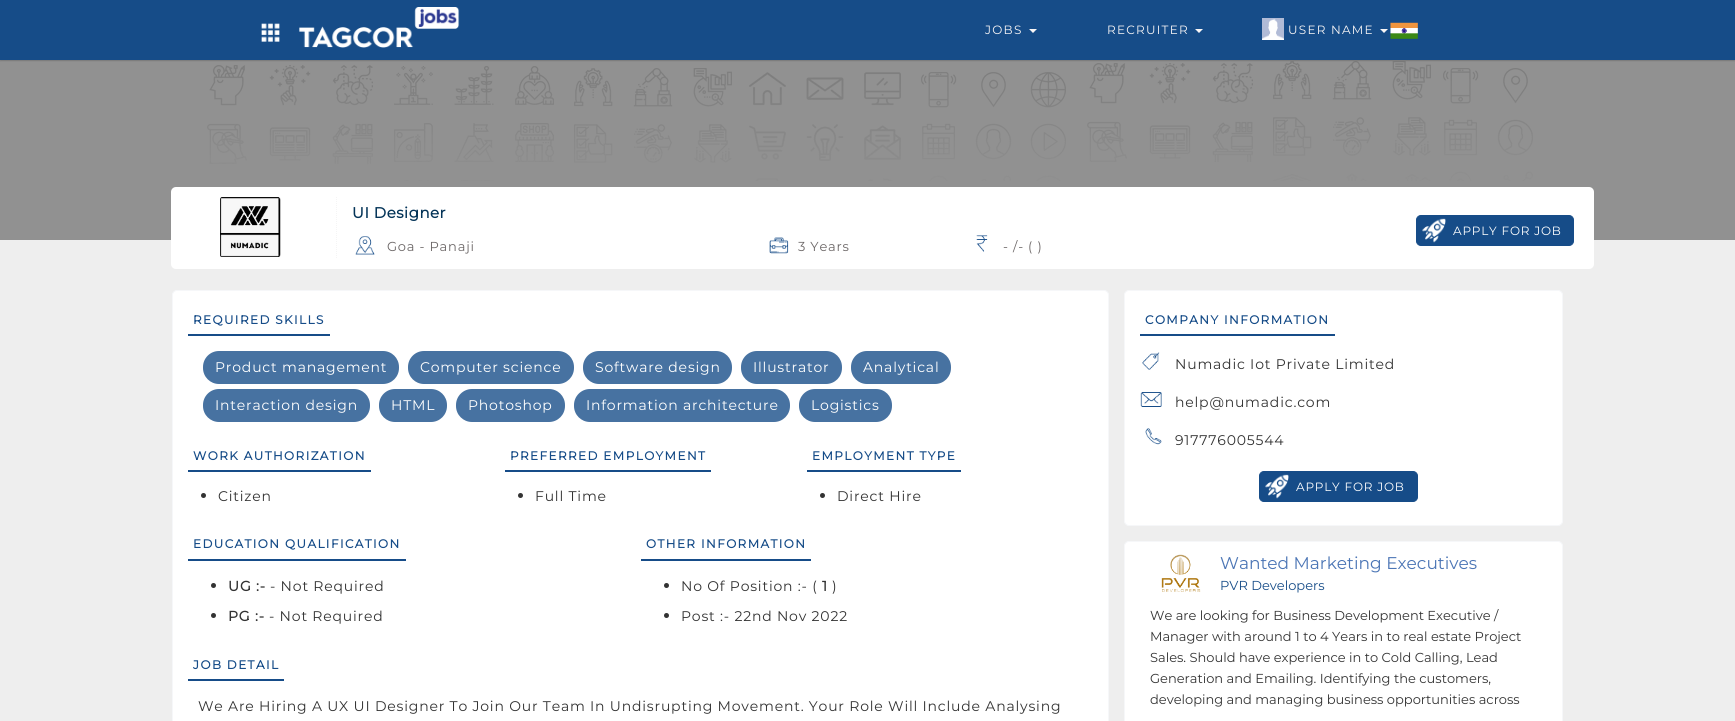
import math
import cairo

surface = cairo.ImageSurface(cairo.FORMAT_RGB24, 1735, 721)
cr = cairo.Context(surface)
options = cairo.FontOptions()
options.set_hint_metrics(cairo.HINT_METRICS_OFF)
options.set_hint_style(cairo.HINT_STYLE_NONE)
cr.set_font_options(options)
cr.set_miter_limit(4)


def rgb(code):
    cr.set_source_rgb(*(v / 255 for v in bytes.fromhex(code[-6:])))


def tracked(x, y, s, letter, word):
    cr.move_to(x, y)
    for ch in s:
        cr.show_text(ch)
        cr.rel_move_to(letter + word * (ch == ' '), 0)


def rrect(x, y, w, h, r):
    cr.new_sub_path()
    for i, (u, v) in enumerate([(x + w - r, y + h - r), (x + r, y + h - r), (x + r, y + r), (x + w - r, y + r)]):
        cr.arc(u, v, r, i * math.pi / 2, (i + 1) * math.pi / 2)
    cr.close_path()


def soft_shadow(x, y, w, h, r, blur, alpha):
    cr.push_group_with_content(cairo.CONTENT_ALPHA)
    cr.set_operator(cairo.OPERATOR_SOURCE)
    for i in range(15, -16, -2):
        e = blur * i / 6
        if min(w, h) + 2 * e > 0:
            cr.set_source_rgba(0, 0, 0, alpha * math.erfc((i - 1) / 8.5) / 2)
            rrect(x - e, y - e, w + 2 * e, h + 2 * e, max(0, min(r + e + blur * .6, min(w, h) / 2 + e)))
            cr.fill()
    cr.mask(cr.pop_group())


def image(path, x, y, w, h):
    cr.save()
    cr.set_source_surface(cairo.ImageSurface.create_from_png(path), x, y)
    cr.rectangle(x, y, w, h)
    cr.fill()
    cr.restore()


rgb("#eeeeee")
cr.paint()
rgb("#919191")
cr.rectangle(0, 60, 1735, 180)
cr.fill()
image("img/5.png", 207, 61, 1326, 120)
rgb("#000000")
soft_shadow(0, 1, 1735, 60, 0, 0.5, 0.16)
rgb("#164c88")
cr.rectangle(0, 0, 1735, 60)
cr.fill()
image("img/1.png", 261, 23, 19, 19)
image("img/2.png", 299, 7, 161, 41)
rgb("#f9f6f6")
cr.new_path()
cr.move_to(1029, 29)
cr.line_to(1037, 29)
cr.line_to(1033, 33)
cr.close_path()
cr.fill()
cr.new_path()
cr.move_to(1195, 29)
cr.line_to(1203, 29)
cr.line_to(1199, 33)
cr.close_path()
cr.fill()
image("img/3.png", 1262, 18, 22, 22)
cr.new_path()
cr.move_to(1380, 29)
cr.line_to(1388, 29)
cr.line_to(1384, 33)
cr.close_path()
cr.fill()
image("img/4.png", 1390, 22, 28, 17)
rgb("#ffffff")
rrect(171, 187, 1423, 82, 5)
cr.fill()
cr.new_path()
cr.move_to(336.5, 197)
cr.line_to(336.5, 259)
rgb("#f5f5f5")
cr.set_line_width(1)
cr.set_dash([1, 1])
cr.stroke()
image("img/6.png", 220, 197, 61, 60)
image("img/7.png", 355, 236, 20, 19)
image("img/8.png", 769, 237, 20, 17)
image("img/9.png", 976, 235, 12, 17)
rgb("#164c88")
rrect(1416.5, 215.5, 157, 30, 4.5)
cr.fill_preserve()
cr.set_dash([])
cr.stroke()
image("img/10.png", 1422, 218, 24, 25)
rgb("#ffffff")
rrect(172.5, 290.5, 936, 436, 4.5)
cr.fill_preserve()
rgb("#f6f7f9")
cr.stroke()
rgb("#164c88")
cr.rectangle(188, 334, 142, 2)
cr.fill()
rgb("#4772a1")
rrect(203, 351, 196, 33, 16)
cr.fill()
rrect(408, 351, 166, 33, 16)
cr.fill()
rrect(583, 351, 149, 33, 16)
cr.fill()
rrect(741, 351, 101, 33, 16)
cr.fill()
rrect(851, 351, 100, 33, 16)
cr.fill()
rrect(203, 389, 167, 33, 16)
cr.fill()
rrect(379, 389, 68, 33, 16)
cr.fill()
rrect(456, 389, 109, 33, 16)
cr.fill()
rrect(574, 389, 216, 33, 16)
cr.fill()
rrect(799, 389, 93, 33, 16)
cr.fill()
rgb("#164c88")
cr.rectangle(188, 470, 183, 2)
cr.fill()
rgb("#333333")
cr.arc(203.5, 495.5, 2.5, 0, 2 * math.pi)
cr.fill()
rgb("#164c88")
cr.rectangle(505, 470, 206, 2)
cr.fill()
rgb("#333333")
cr.arc(520.5, 495.5, 2.5, 0, 2 * math.pi)
cr.fill()
rgb("#164c88")
cr.rectangle(807, 470, 154, 2)
cr.fill()
rgb("#333333")
cr.arc(822.5, 495.5, 2.5, 0, 2 * math.pi)
cr.fill()
rgb("#164c88")
cr.rectangle(188, 559, 218, 2)
cr.fill()
rgb("#333333")
cr.arc(213.5, 585.5, 2.5, 0, 2 * math.pi)
cr.fill()
cr.arc(213.5, 615.5, 2.5, 0, 2 * math.pi)
cr.fill()
rgb("#164c88")
cr.rectangle(641, 559, 170, 2)
cr.fill()
rgb("#333333")
cr.arc(666.5, 585.5, 2.5, 0, 2 * math.pi)
cr.fill()
cr.arc(666.5, 615.5, 2.5, 0, 2 * math.pi)
cr.fill()
rgb("#164c88")
cr.rectangle(188, 679, 96, 2)
cr.fill()
rgb("#ffffff")
rrect(1124.5, 290.5, 438, 235, 4.5)
cr.fill_preserve()
rgb("#f6f7f9")
cr.stroke()
rgb("#164c88")
cr.rectangle(1140, 334, 195, 2)
cr.fill()
image("img/11.png", 1142, 352, 18, 18)
image("img/12.png", 1140, 392, 22, 15)
image("img/13.png", 1145, 428, 17, 17)
rrect(1259.5, 471.5, 158, 30, 4.5)
cr.fill_preserve()
cr.stroke()
image("img/10.png", 1265, 474, 24, 25)
rgb("#ffffff")
rrect(1124.5, 541.5, 438, 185, 4.5)
cr.fill_preserve()
rgb("#f6f7f9")
cr.stroke()
image("img/14.png", 1161, 554, 40, 38)
cr.select_font_face("Montserrat Thin")
cr.set_font_size(12)
rgb("#f9f6f6")
for x, y, s in [
    (985, 34, "JOBS"),
    (1107, 34, "RECRUITER"),
    (1288, 34, "USER NAME"),
]:
    tracked(x, y, s, 1.25, 0)
cr.select_font_face("Montserrat", cairo.FONT_SLANT_NORMAL, cairo.FONT_WEIGHT_BOLD)
cr.set_font_size(15)
rgb("#043458")
tracked(352, 218, "UI Designer", 0.5, 0)
cr.select_font_face("Montserrat Thin")
cr.set_font_size(13)
rgb("#6b6666")
for x, y, s in [
    (387, 251, "Goa - Panaji"),
    (798, 251, "3 Years"),
    (1003, 251, "- /- ( )"),
]:
    tracked(x, y, s, 0.8, 0)
cr.set_font_size(12)
rgb("#ffffff")
tracked(1453, 235, "APPLY FOR JOB", 0.8, 0)
cr.select_font_face("Montserrat", cairo.FONT_SLANT_NORMAL, cairo.FONT_WEIGHT_BOLD)
rgb("#164c88")
tracked(193, 324, "REQUIRED SKILLS", 1.4, 0)
cr.select_font_face("Montserrat Thin")
cr.set_font_size(14)
rgb("#ffffff")
for x, y, s in [
    (215, 372, "Product management"),
    (420, 372, "Computer science"),
    (595, 372, "Software design"),
    (753, 372, "Illustrator"),
    (863, 372, "Analytical"),
    (215, 410, "Interaction design"),
    (391, 410, "HTML"),
    (468, 410, "Photoshop"),
    (586, 410, "Information architecture"),
    (811, 410, "Logistics"),
]:
    tracked(x, y, s, 0.8, 0)
cr.select_font_face("Montserrat", cairo.FONT_SLANT_NORMAL, cairo.FONT_WEIGHT_BOLD)
cr.set_font_size(12)
rgb("#164c88")
tracked(193, 460, "WORK AUTHORIZATION", 1.4, 0)
cr.select_font_face("Montserrat Thin")
cr.set_font_size(14)
rgb("#333333")
tracked(218, 501, "Citizen", 0.8, 0)
cr.select_font_face("Montserrat", cairo.FONT_SLANT_NORMAL, cairo.FONT_WEIGHT_BOLD)
cr.set_font_size(12)
rgb("#164c88")
tracked(510, 460, "PREFERRED EMPLOYMENT", 1.4, 0)
cr.select_font_face("Montserrat Thin")
cr.set_font_size(14)
rgb("#333333")
tracked(535, 501, "Full Time", 0.8, 0)
cr.select_font_face("Montserrat", cairo.FONT_SLANT_NORMAL, cairo.FONT_WEIGHT_BOLD)
cr.set_font_size(12)
rgb("#164c88")
tracked(812, 460, "EMPLOYMENT TYPE", 1.4, 0)
cr.select_font_face("Montserrat Thin")
cr.set_font_size(14)
rgb("#333333")
tracked(837, 501, "Direct Hire", 0.8, 0)
cr.select_font_face("Montserrat", cairo.FONT_SLANT_NORMAL, cairo.FONT_WEIGHT_BOLD)
cr.set_font_size(12)
rgb("#164c88")
tracked(193, 548, "EDUCATION QUALIFICATION", 1.4, 0)
cr.set_font_size(14)
rgb("#333333")
tracked(228, 591, "UG :-", 0.8, 0)
cr.select_font_face("Montserrat Thin")
tracked(270, 591, "- Not Required", 0.8, 0)
cr.select_font_face("Montserrat", cairo.FONT_SLANT_NORMAL, cairo.FONT_WEIGHT_BOLD)
tracked(228, 621, "PG :-", 0.8, 0)
cr.select_font_face("Montserrat Thin")
tracked(269, 621, "- Not Required", 0.8, 0)
cr.select_font_face("Montserrat", cairo.FONT_SLANT_NORMAL, cairo.FONT_WEIGHT_BOLD)
cr.set_font_size(12)
rgb("#164c88")
tracked(646, 548, "OTHER INFORMATION", 1.4, 0)
cr.select_font_face("Montserrat Thin")
cr.set_font_size(14)
rgb("#333333")
tracked(681, 591, "No Of Position :- (", 0.8, 0)
cr.select_font_face("Montserrat", cairo.FONT_SLANT_NORMAL, cairo.FONT_WEIGHT_BOLD)
tracked(822, 591, "1", 0.8, 0)
cr.select_font_face("Montserrat Thin")
tracked(832, 591, ")", 0.8, 0)
tracked(681, 621, "Post :- 22nd Nov 2022", 0.8, 0)
cr.select_font_face("Montserrat", cairo.FONT_SLANT_NORMAL, cairo.FONT_WEIGHT_BOLD)
cr.set_font_size(12)
rgb("#164c88")
tracked(193, 669, "JOB DETAIL", 1.4, 0)
cr.select_font_face("Montserrat Thin")
cr.set_font_size(14)
rgb("#333333")
tracked(198, 711, "We Are Hiring A UX UI Designer To Join Our Team In Undisrupting Movement. Your Role Will Include Analysing", 0.8, 0)
cr.select_font_face("Montserrat", cairo.FONT_SLANT_NORMAL, cairo.FONT_WEIGHT_BOLD)
cr.set_font_size(12)
rgb("#164c88")
tracked(1145, 324, "COMPANY INFORMATION", 1.4, 0)
cr.select_font_face("Montserrat Thin")
cr.set_font_size(14)
rgb("#333333")
for x, y, s in [
    (1175, 369, "Numadic Iot Private Limited"),
    (1175, 407, "help@numadic.com"),
    (1175, 445, "917776005544"),
]:
    tracked(x, y, s, 0.8, 0)
cr.set_font_size(12)
rgb("#ffffff")
tracked(1296, 491, "APPLY FOR JOB", 0.8, 0)
cr.set_font_size(17)
rgb("#4b75b5")
cr.move_to(1220, 569)
cr.show_text("Wanted Marketing Executives")
cr.set_font_size(13)
rgb("#164c88")
cr.move_to(1220, 590)
cr.show_text("PVR Developers")
rgb("#333333")
for x, y, s in [
    (1150, 620, "We are looking for Business Development Executive /"),
    (1150, 641, "Manager with around 1 to 4 Years in to real estate Project"),
    (1150, 662, "Sales. Should have experience in to Cold Calling, Lead"),
    (1150, 683, "Generation and Emailing. Identifying the customers,"),
    (1150, 704, "developing and managing business opportunities across"),
]:
    cr.move_to(x, y)
    cr.show_text(s)
surface.write_to_png("page.png")
